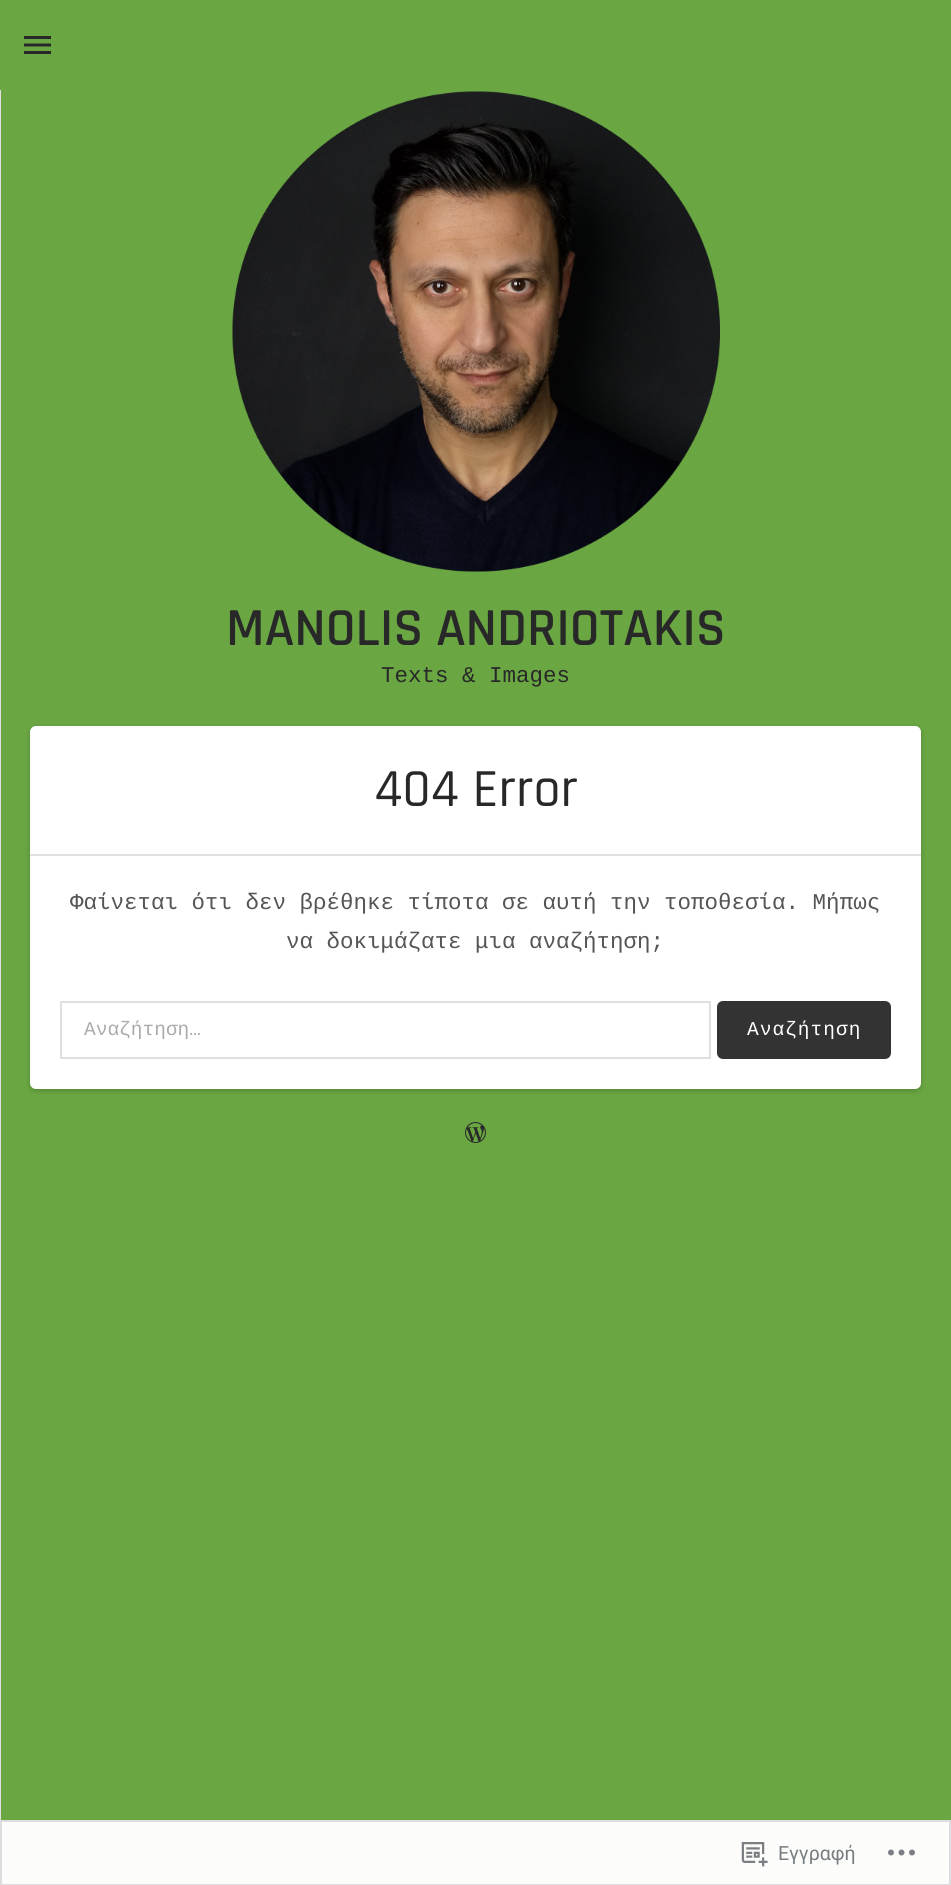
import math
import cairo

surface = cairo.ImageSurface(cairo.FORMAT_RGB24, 951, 1885)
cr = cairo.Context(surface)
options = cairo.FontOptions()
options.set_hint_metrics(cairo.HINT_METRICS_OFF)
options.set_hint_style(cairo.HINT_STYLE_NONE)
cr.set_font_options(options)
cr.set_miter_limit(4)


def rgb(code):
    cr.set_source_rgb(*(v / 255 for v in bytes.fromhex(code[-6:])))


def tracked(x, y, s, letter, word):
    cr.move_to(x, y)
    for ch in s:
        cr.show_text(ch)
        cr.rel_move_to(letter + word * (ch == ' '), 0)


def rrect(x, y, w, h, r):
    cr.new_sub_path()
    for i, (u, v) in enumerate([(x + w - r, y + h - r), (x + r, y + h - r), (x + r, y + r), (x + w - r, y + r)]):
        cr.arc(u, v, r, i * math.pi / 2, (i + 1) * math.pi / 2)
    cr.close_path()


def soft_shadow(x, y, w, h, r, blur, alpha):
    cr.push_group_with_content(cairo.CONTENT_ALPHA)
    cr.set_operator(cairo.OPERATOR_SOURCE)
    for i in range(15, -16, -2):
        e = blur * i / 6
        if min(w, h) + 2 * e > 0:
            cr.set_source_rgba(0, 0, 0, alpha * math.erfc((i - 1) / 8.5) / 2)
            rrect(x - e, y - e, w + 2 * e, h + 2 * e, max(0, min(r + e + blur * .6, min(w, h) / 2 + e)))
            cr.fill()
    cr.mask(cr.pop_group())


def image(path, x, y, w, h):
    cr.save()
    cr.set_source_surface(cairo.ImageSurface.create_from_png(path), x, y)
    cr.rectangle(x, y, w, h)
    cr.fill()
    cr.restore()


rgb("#6aa743")
cr.paint()
rgb("#fcfdfb")
cr.rectangle(1, 1820, 950, 65)
cr.fill()
image("img/1.png", 24, 36, 27, 18)
rgb("#e0e0e0")
cr.rectangle(0, 90, 1, 1730)
cr.fill()
rgb("#fefefe")
cr.rectangle(0, 1820, 1, 65)
cr.fill()
image("img/2.png", 232, 91, 488, 481)
rgb("#000000")
soft_shadow(30, 728, 891, 363, 6, 3, 0.2)
rgb("#ffffff")
rrect(30, 726, 891, 363, 6)
cr.fill()
rgb("#e0e0e0")
cr.rectangle(30, 854, 891, 2)
cr.fill()
cr.rectangle(61, 1002, 649, 56)
cr.stroke()
rgb("#333333")
rrect(717, 1001, 174, 58, 6)
cr.fill()
image("img/3.png", 465, 1122, 21, 21)
cr.rectangle(1, 1821, 949, 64)
cr.set_source_rgba(0.863, 0.863, 0.871, 0.98)
cr.stroke()
image("img/4.png", 741, 1842, 27, 25)
image("img/5.png", 888, 1849, 27, 7)
cr.select_font_face("Rajdhani SemiBold")
cr.set_font_size(54)
rgb("#282828")
cr.move_to(226, 645)
cr.show_text("MANOLIS ANDRIOTAKIS")
cr.select_font_face("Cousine")
cr.set_font_size(22.5)
cr.move_to(381, 682)
cr.show_text("Texts & Images")
cr.select_font_face("Rajdhani Medium")
cr.set_font_size(54)
cr.move_to(374, 806)
cr.show_text("404 Error")
cr.select_font_face("Cousine")
cr.set_font_size(22.5)
rgb("#555555")
cr.move_to(70, 909)
cr.show_text("Φαίνεται ότι δεν βρέθηκε τίποτα σε αυτή την τοποθεσία. Μήπως")
cr.move_to(286, 948)
cr.show_text("να δοκιμάζατε μια αναζήτηση;")
cr.set_font_size(19.5)
rgb("#ababab")
cr.move_to(84, 1035)
cr.show_text("Αναζήτηση…")
rgb("#ffffff")
tracked(747, 1035, "Αναζήτηση", 1, 0)
cr.select_font_face("Roboto")
rgb("#787d81")
cr.move_to(778, 1860)
cr.show_text("Εγγραφή")
surface.write_to_png("page.png")
